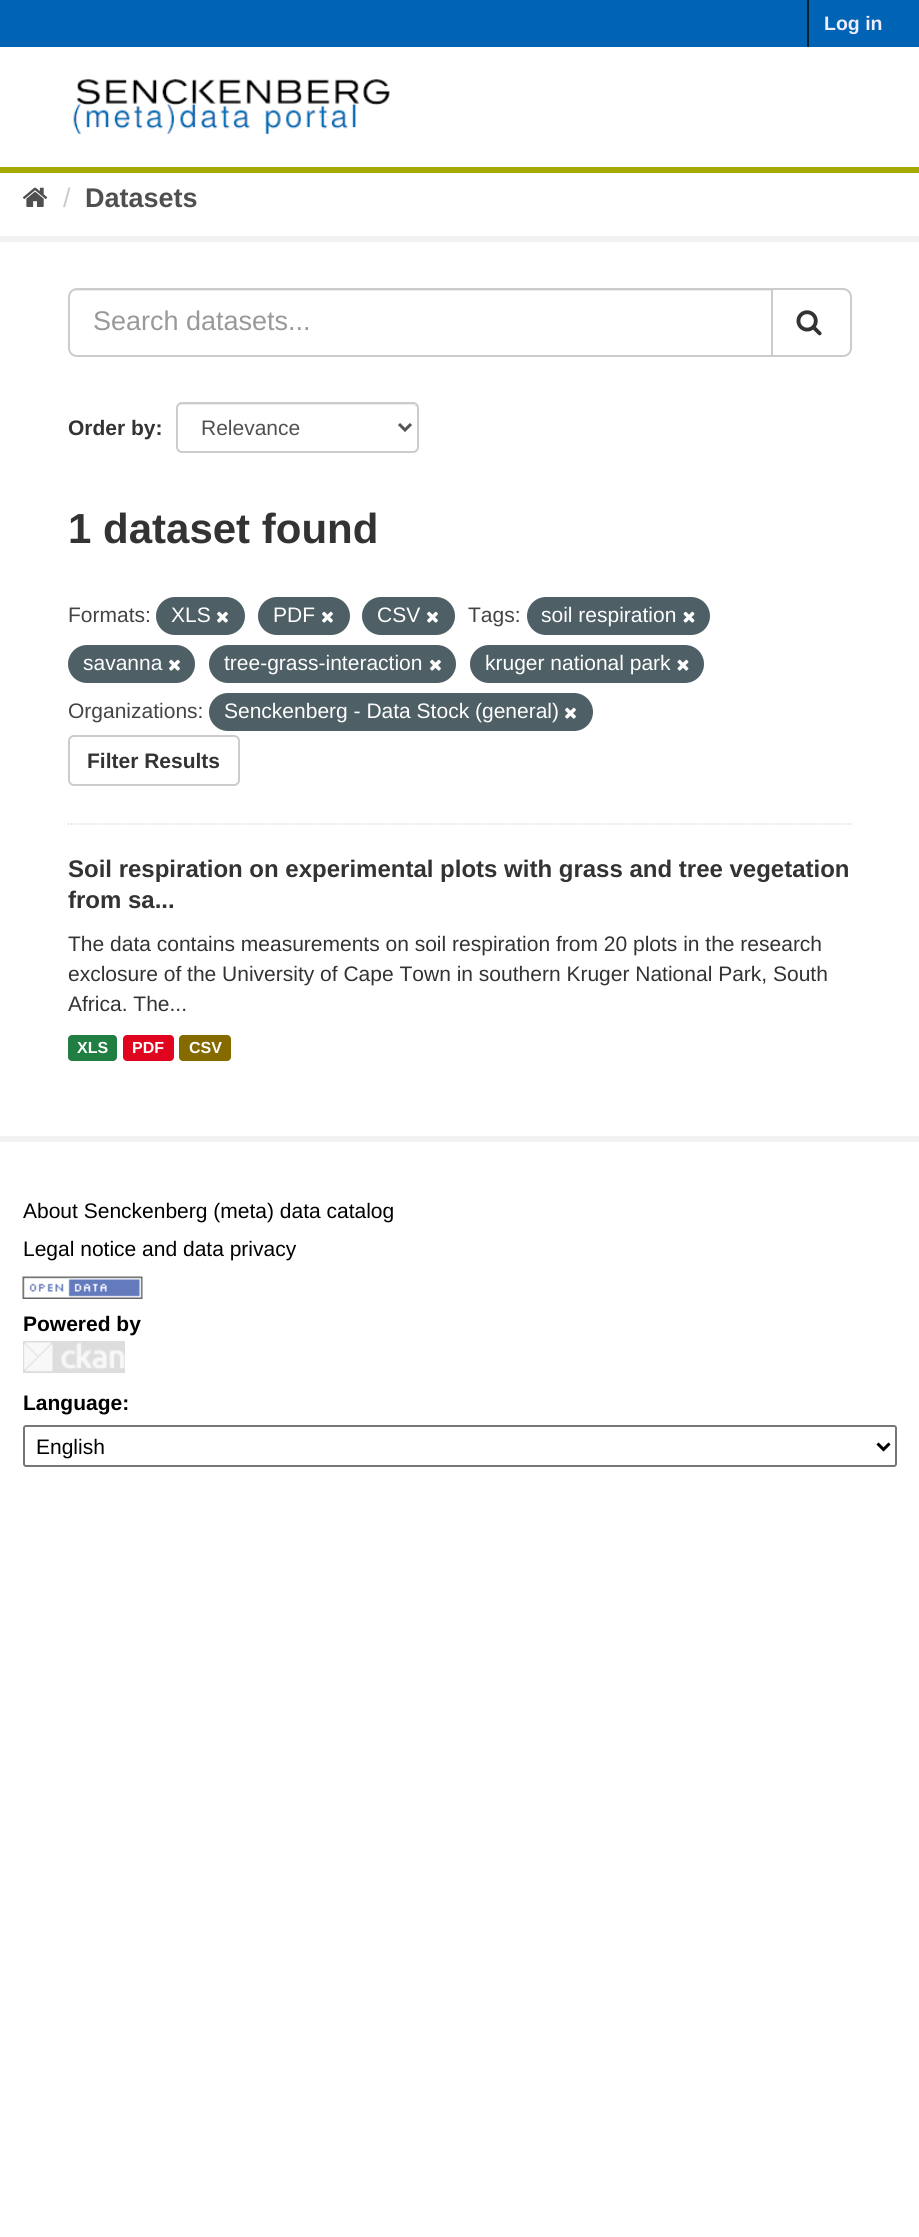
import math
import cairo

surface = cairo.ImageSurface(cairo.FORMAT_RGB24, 919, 2237)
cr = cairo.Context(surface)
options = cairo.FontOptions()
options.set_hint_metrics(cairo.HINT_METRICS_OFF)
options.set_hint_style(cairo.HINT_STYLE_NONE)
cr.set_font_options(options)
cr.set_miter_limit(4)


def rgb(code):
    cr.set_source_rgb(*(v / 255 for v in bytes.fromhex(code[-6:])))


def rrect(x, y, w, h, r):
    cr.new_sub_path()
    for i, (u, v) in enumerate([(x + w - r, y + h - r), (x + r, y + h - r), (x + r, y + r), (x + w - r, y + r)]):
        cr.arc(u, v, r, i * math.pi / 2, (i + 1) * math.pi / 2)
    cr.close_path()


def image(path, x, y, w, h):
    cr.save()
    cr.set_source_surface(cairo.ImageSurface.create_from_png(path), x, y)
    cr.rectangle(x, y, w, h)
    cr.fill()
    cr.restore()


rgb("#ffffff")
cr.paint()
for x, y, w, h, color in [
    (0, 0, 919, 47, "#0063b4"),
    (807, 0, 2, 47, "#00232e"),
    (0, 167, 919, 6, "#a4aa00"),
]:
    rgb(color)
    cr.rectangle(x, y, w, h)
    cr.fill()
image("img/1.png", 73, 79, 317, 56)
image("img/2.png", 22, 187, 26, 20)
cr.rectangle(-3, 239, 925, 900)
rgb("#f2f2f2")
cr.set_line_width(6)
cr.stroke()
cr.new_path()
cr.move_to(67.5, 824)
cr.line_to(852, 824)
rgb("#dddddd")
cr.set_line_width(1.5)
cr.set_dash([1.5, 1.5])
cr.stroke()
rgb("#ececec")
cr.new_path()
cr.move_to(76, 291)
cr.line_to(771, 291)
cr.line_to(771, 290)
cr.line_to(77, 290)
cr.curve_to(73, 290, 69, 294, 69, 298)
cr.curve_to(69, 294, 72, 291, 76, 291)
cr.close_path()
cr.fill()
cr.new_path()
cr.move_to(77, 289)
cr.line_to(772, 289)
cr.line_to(772, 356)
cr.line_to(77, 356)
cr.curve_to(72.5, 356, 69, 352.5, 69, 348)
cr.line_to(69, 297)
cr.curve_to(69, 292.5, 72.5, 289, 77, 289)
cr.close_path()
rgb("#cccccc")
cr.set_line_width(2)
cr.set_dash([])
cr.stroke()
rgb("#ffffff")
cr.new_path()
cr.move_to(772, 289)
cr.line_to(843, 289)
cr.curve_to(847.5, 289, 851, 292.5, 851, 297)
cr.line_to(851, 348)
cr.curve_to(851, 352.5, 847.5, 356, 843, 356)
cr.line_to(772, 356)
cr.close_path()
cr.fill_preserve()
rgb("#cccccc")
cr.stroke()
image("img/3.png", 796, 310, 26, 26)
rgb("#ececec")
cr.new_path()
cr.move_to(182, 405)
cr.line_to(412, 405)
cr.curve_to(415, 405, 417, 407, 417, 410)
cr.line_to(417, 409)
cr.curve_to(417, 406, 415, 404, 412, 404)
cr.line_to(182, 404)
cr.curve_to(179, 404, 177, 406, 177, 409)
cr.line_to(177, 410)
cr.curve_to(177, 407, 179, 405, 182, 405)
cr.close_path()
cr.fill()
rrect(177, 403, 241, 49, 5)
rgb("#cccccc")
cr.stroke()
cr.new_path()
cr.move_to(399, 424)
cr.line_to(405, 430)
cr.line_to(411, 424)
rgb("#555555")
cr.set_line_width(3)
cr.stroke()
rgb("#4e5f65")
rrect(156, 597, 89, 38, 19)
cr.fill()
image("img/4.png", 217, 611, 11, 12)
rrect(258, 597, 92, 38, 19)
cr.fill()
image("img/4.png", 322, 611, 11, 12)
rrect(362, 597, 93, 38, 19)
cr.fill()
image("img/4.png", 427, 611, 11, 12)
rrect(527, 597, 183, 38, 19)
cr.fill()
image("img/5.png", 683, 611, 12, 12)
rrect(68, 645, 127, 38, 19)
cr.fill()
image("img/4.png", 169, 659, 11, 12)
rrect(209, 645, 247, 38, 19)
cr.fill()
image("img/4.png", 430, 659, 11, 12)
rrect(470, 645, 234, 38, 19)
cr.fill()
image("img/5.png", 677, 659, 12, 12)
rrect(209, 693, 384, 38, 19)
cr.fill()
image("img/4.png", 565, 707, 11, 12)
rrect(69, 736, 170, 49, 5)
rgb("#cccccc")
cr.set_line_width(2)
cr.stroke()
rgb("#207e42")
rrect(68, 1035, 49, 26, 4)
cr.fill()
rgb("#e0051e")
rrect(123, 1035, 51, 26, 4)
cr.fill()
rgb("#856a00")
rrect(179, 1035, 52, 26, 4)
cr.fill()
image("img/6.png", 22, 1276, 121, 23)
rgb("#dddddd")
cr.rectangle(23, 1341, 102, 32)
cr.fill()
image("img/7.png", 24, 1342, 101, 30)
rrect(24, 1426, 872, 40, 2)
rgb("#767676")
cr.stroke()
cr.new_path()
cr.move_to(877.5, 1443.5)
cr.line_to(883.5, 1449.5)
cr.line_to(889.5, 1443.5)
rgb("#000000")
cr.set_line_width(3)
cr.stroke()
cr.select_font_face("Liberation Sans", cairo.FONT_SLANT_NORMAL, cairo.FONT_WEIGHT_BOLD)
cr.set_font_size(19.5)
rgb("#eeeeff")
cr.move_to(824, 30)
cr.show_text("Log in")
cr.select_font_face("Liberation Sans")
cr.set_font_size(27)
rgb("#cccccc")
cr.move_to(63, 207)
cr.show_text("/")
cr.select_font_face("Liberation Sans", cairo.FONT_SLANT_NORMAL, cairo.FONT_WEIGHT_BOLD)
rgb("#505050")
cr.move_to(85, 207)
cr.show_text("Datasets")
cr.select_font_face("Liberation Sans")
rgb("#999999")
cr.move_to(93, 330)
cr.show_text("Search datasets...")
cr.select_font_face("Liberation Sans", cairo.FONT_SLANT_NORMAL, cairo.FONT_WEIGHT_BOLD)
cr.set_font_size(21)
rgb("#333333")
cr.move_to(68, 435)
cr.show_text("Order by:")
cr.select_font_face("Liberation Sans")
rgb("#505050")
cr.move_to(201, 435)
cr.show_text("Relevance")
cr.select_font_face("Liberation Sans", cairo.FONT_SLANT_NORMAL, cairo.FONT_WEIGHT_BOLD)
cr.set_font_size(42)
rgb("#333333")
cr.move_to(68, 543)
cr.show_text("1 dataset found")
cr.select_font_face("Liberation Sans")
cr.set_font_size(21)
rgb("#444444")
cr.move_to(68, 622)
cr.show_text("Formats:")
rgb("#ffffff")
for x, y, s in [
    (171, 622, "XLS"),
    (273, 622, "PDF"),
    (377, 622, "CSV"),
]:
    cr.move_to(x, y)
    cr.show_text(s)
rgb("#444444")
cr.move_to(468, 622)
cr.show_text("Tags:")
rgb("#ffffff")
for x, y, s in [
    (541, 622, "soil respiration"),
    (83, 670, "savanna"),
    (224, 670, "tree-grass-interaction"),
    (485, 670, "kruger national park"),
]:
    cr.move_to(x, y)
    cr.show_text(s)
rgb("#444444")
cr.move_to(68, 718)
cr.show_text("Organizations:")
rgb("#ffffff")
cr.move_to(224, 718)
cr.show_text("Senckenberg - Data Stock (general)")
cr.select_font_face("Liberation Sans", cairo.FONT_SLANT_NORMAL, cairo.FONT_WEIGHT_BOLD)
rgb("#333333")
cr.move_to(87, 768)
cr.show_text("Filter Results")
cr.set_font_size(24)
cr.move_to(68, 877)
cr.show_text("Soil respiration on experimental plots with grass and tree vegetation")
cr.move_to(68, 908)
cr.show_text("from sa...")
cr.select_font_face("Liberation Sans")
cr.set_font_size(21)
for x, y, s in [
    (68, 951, "The data contains measurements on soil respiration from 20 plots in the research"),
    (68, 981, "exclosure of the University of Cape Town in southern Kruger National Park, South"),
    (68, 1011, "Africa. The..."),
]:
    cr.move_to(x, y)
    cr.show_text(s)
cr.select_font_face("Liberation Sans", cairo.FONT_SLANT_NORMAL, cairo.FONT_WEIGHT_BOLD)
cr.set_font_size(16)
rgb("#ffffff")
for x, y, s in [
    (77, 1053, "XLS"),
    (132, 1053, "PDF"),
    (189, 1053, "CSV"),
]:
    cr.move_to(x, y)
    cr.show_text(s)
cr.select_font_face("Liberation Sans")
cr.set_font_size(21)
rgb("#000000")
cr.move_to(23, 1218)
cr.show_text("About Senckenberg (meta) data catalog")
cr.move_to(23, 1256)
cr.show_text("Legal notice and data privacy")
cr.select_font_face("Liberation Sans", cairo.FONT_SLANT_NORMAL, cairo.FONT_WEIGHT_BOLD)
cr.move_to(23, 1331)
cr.show_text("Powered by")
cr.move_to(23, 1410)
cr.show_text("Language:")
cr.select_font_face("Liberation Sans")
cr.move_to(36, 1454)
cr.show_text("English")
surface.write_to_png("page.png")
